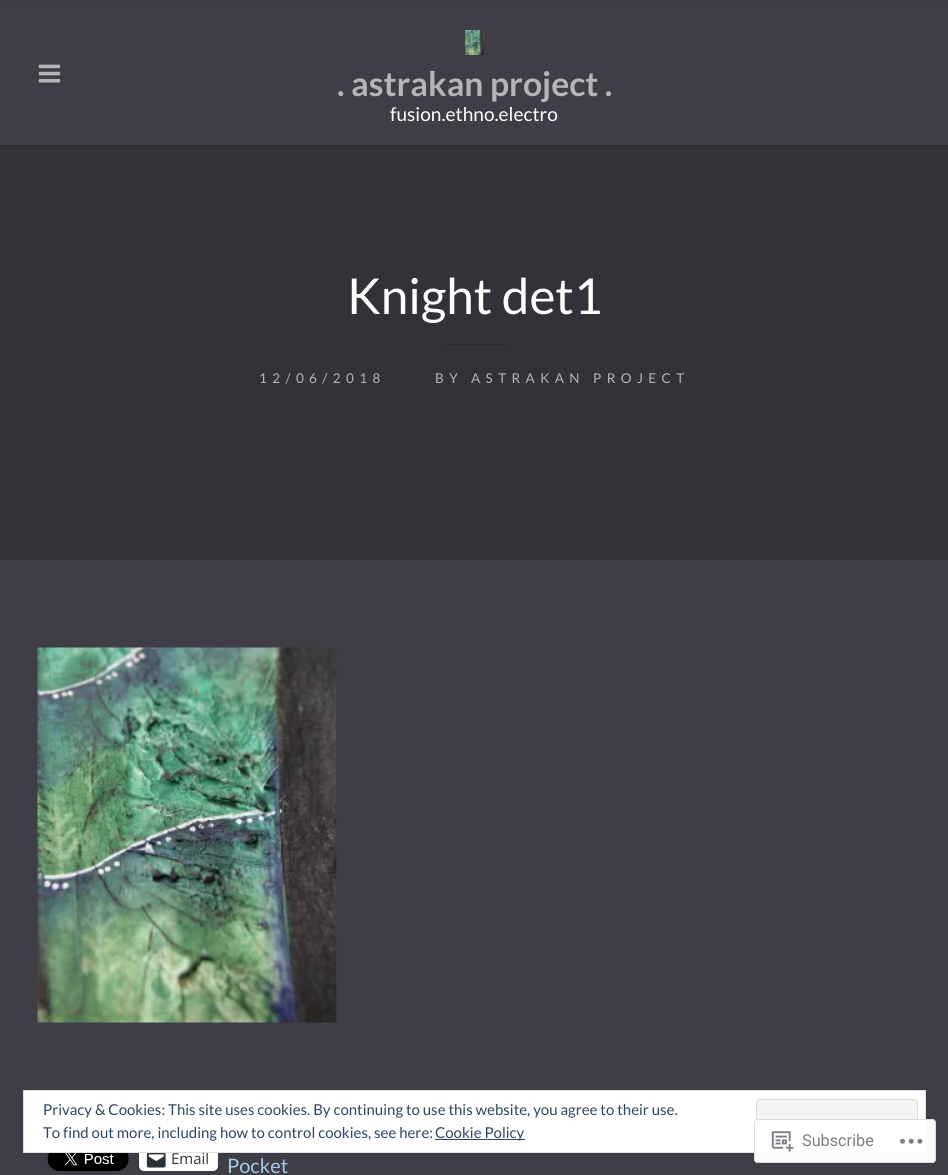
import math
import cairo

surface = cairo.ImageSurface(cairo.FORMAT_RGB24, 948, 1175)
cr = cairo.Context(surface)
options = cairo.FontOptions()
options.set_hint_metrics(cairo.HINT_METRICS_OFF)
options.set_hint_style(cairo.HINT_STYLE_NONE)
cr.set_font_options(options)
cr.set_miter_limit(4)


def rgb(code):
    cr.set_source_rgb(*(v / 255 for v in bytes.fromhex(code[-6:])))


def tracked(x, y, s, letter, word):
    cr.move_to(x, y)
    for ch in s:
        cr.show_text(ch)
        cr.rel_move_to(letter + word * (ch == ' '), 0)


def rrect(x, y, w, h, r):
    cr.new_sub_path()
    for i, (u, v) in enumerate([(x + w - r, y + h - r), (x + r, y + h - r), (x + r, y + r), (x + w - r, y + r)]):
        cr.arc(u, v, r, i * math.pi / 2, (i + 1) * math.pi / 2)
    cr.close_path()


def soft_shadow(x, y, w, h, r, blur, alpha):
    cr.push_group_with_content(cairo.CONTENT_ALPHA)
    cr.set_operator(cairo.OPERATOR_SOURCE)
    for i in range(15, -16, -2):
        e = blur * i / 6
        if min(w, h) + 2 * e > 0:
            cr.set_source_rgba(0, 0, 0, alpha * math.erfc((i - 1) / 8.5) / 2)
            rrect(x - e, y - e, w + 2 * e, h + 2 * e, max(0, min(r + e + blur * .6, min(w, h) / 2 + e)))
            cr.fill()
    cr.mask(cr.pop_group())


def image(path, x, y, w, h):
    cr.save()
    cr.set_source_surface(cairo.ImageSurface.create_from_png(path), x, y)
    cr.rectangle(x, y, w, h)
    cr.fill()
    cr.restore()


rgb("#3f3e46")
cr.paint()
rgb("#333238")
cr.rectangle(0, 145, 948, 415)
cr.fill()
rgb("#000000")
soft_shadow(0, 1, 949, 145, 0, 0.5, 0.2)
rgb("#3f3e46")
cr.rectangle(0, 1, 948, 144)
cr.fill()
image("img/1.png", 38, 64, 23, 19)
image("img/2.png", 465, 30, 19, 25)
rgb("#29282d")
cr.rectangle(444, 344, 62, 1)
cr.fill()
image("img/3.png", 37, 647, 300, 376)
image("img/4.png", 47, 1153, 82, 19)
rrect(138.5, 1145.5, 80, 27, 5.5)
rgb("#37373e")
cr.set_line_width(1)
cr.stroke()
rgb("#ffffff")
rrect(139, 1146, 79, 25, 5)
cr.fill()
image("img/5.png", 146, 1153, 20, 15)
cr.select_font_face("Lato", cairo.FONT_SLANT_NORMAL, cairo.FONT_WEIGHT_BOLD)
cr.set_font_size(33.75)
rgb("#b5b5b5")
cr.move_to(337, 96)
cr.show_text(". astrakan project .")
cr.select_font_face("Lato")
cr.set_font_size(19.1)
rgb("#ffffff")
cr.move_to(390, 121)
cr.show_text("fusion.ethno.electro")
cr.set_font_size(49.5)
cr.move_to(347, 314)
cr.show_text("Knight det1")
cr.set_font_size(13.5)
rgb("#b5b5b5")
tracked(259, 383, "12/06/2018", 5.4, 0)
tracked(435, 383, "BY ASTRAKAN PROJECT", 5.4, 0)
cr.select_font_face("Open Sans")
cr.set_font_size(15)
rgb("#2c3338")
cr.move_to(171, 1164)
cr.show_text("Email")
cr.select_font_face("Lato")
cr.set_font_size(20)
rgb("#9ecce5")
cr.move_to(227, 1173)
cr.show_text("Pocket")
rgb("#ffffff")
cr.rectangle(23.5, 1090.5, 902, 62)
cr.fill_preserve()
rgb("#dedede")
cr.stroke()
cr.set_font_size(15)
rgb("#2e4467")
cr.move_to(43, 1115)
cr.show_text("Privacy & Cookies: This site uses cookies. By continuing to use this website, you agree to their use.")
rgb("#f3f3f3")
rrect(756.5, 1099.5, 161, 43, 3.5)
cr.fill_preserve()
rgb("#dedede")
cr.stroke()
cr.set_source_rgba(1, 1, 1, 0.98)
rrect(754, 1119, 182, 44, 4)
cr.fill()
rrect(754.5, 1119.5, 181, 43, 3.5)
cr.set_source_rgba(0.863, 0.863, 0.871, 0.98)
cr.stroke()
image("img/7.png", 900, 1138, 23, 6)
image("img/6.png", 771, 1131, 23, 21)
cr.select_font_face("Roboto")
cr.set_font_size(16.25)
rgb("#7b7f84")
cr.move_to(802, 1146)
cr.show_text("Subscribe")
cr.select_font_face("Lato")
cr.set_font_size(15)
rgb("#2e4467")
cr.move_to(43, 1138)
cr.show_text("To find out more, including how to control cookies, see here:")
cr.rectangle(435, 1139, 90, 1)
cr.fill()
cr.move_to(435, 1138)
cr.show_text("Cookie Policy")
surface.write_to_png("page.png")
